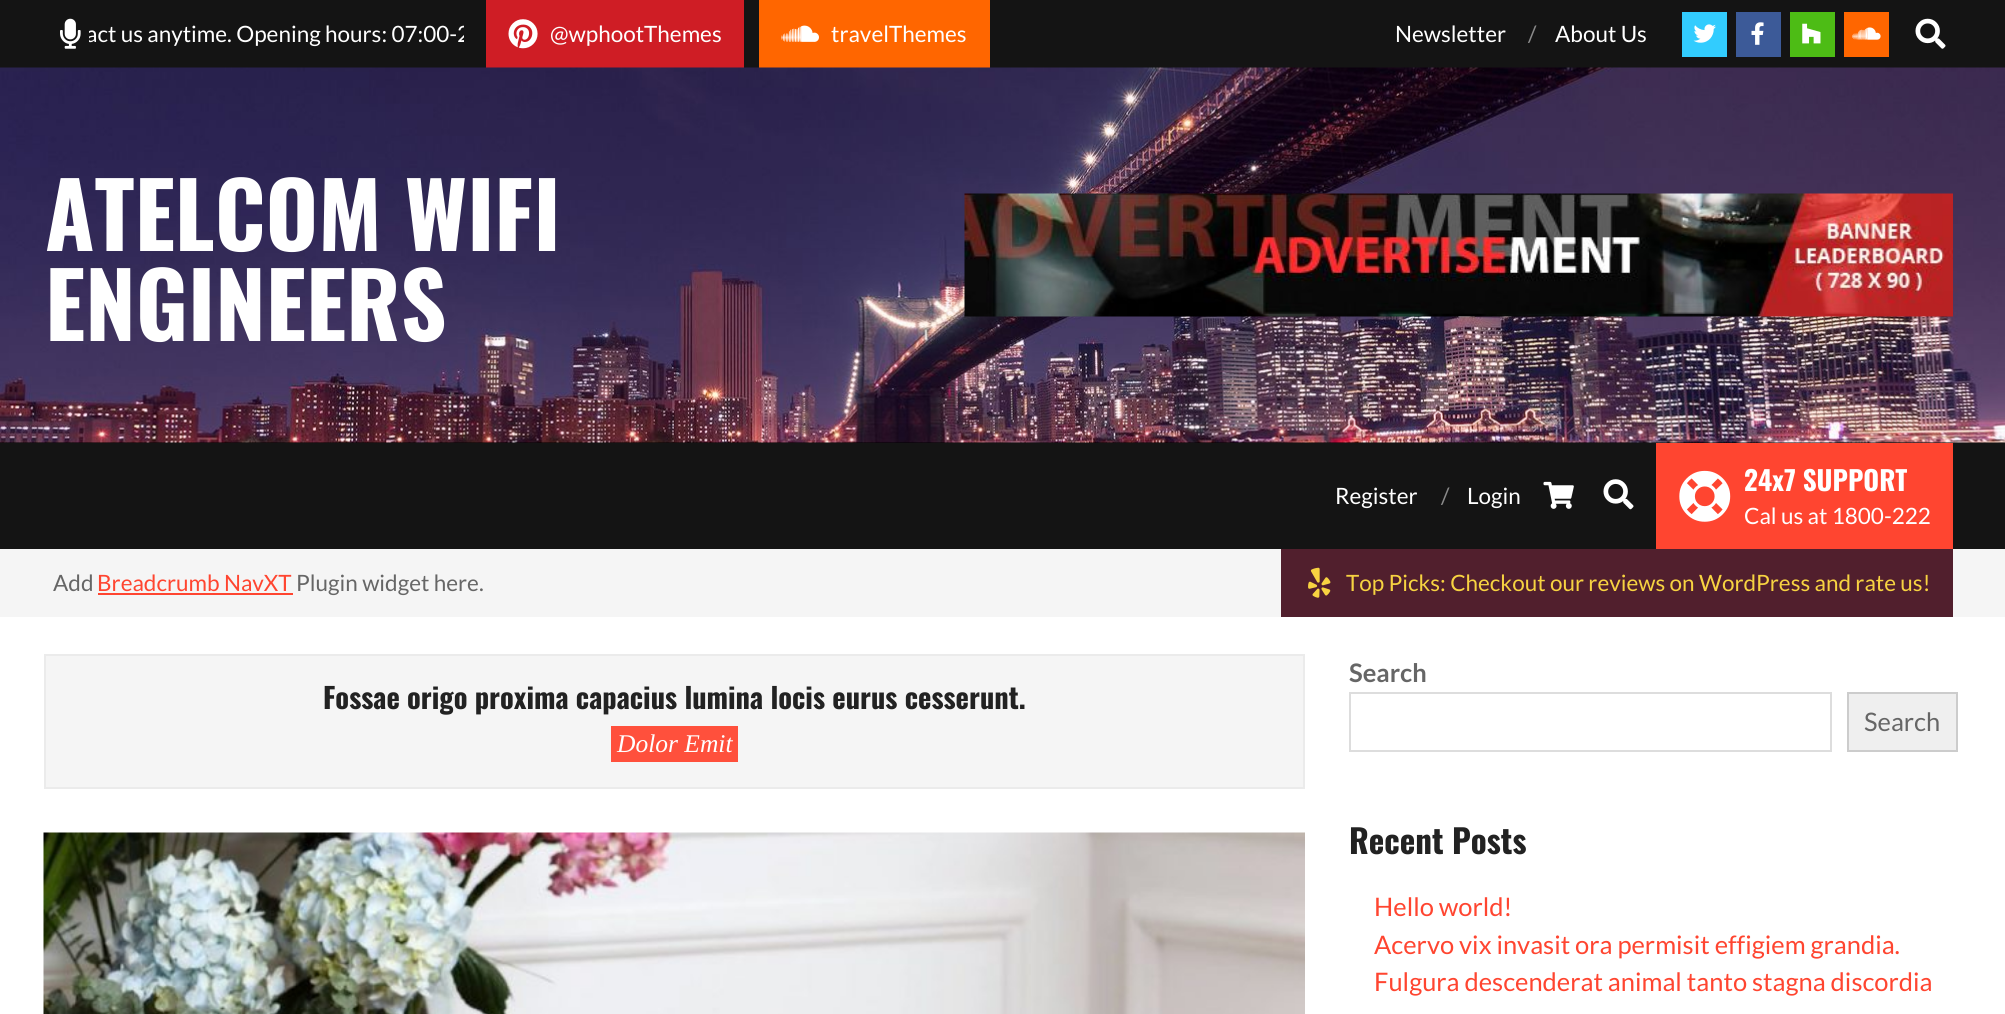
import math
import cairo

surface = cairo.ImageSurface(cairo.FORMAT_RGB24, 2005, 1014)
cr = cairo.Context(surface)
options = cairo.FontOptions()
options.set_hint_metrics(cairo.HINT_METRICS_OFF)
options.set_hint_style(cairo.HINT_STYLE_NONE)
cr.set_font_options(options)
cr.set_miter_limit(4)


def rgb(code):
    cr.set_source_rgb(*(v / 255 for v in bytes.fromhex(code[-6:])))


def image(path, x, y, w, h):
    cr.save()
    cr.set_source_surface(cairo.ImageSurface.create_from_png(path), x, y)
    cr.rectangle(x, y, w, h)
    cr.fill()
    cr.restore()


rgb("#000000")
cr.paint()
rgb("#141414")
cr.rectangle(0, 0, 2005, 68)
cr.fill()
image("img/1.png", 60, 18, 21, 31)
rgb("#cf1d25")
cr.rectangle(486, 0, 258, 68)
cr.fill()
image("img/2.png", 508, 19, 30, 30)
rgb("#ff6600")
cr.rectangle(759, 0, 231, 68)
cr.fill()
image("img/3.png", 781, 25, 38, 17)
rgb("#32ccfe")
cr.rectangle(1682, 12, 45, 45)
cr.fill()
image("img/4.png", 1693, 24, 23, 19)
rgb("#3c5a98")
cr.rectangle(1736, 12, 45, 45)
cr.fill()
image("img/5.png", 1751, 22, 13, 23)
rgb("#4dbc15")
cr.rectangle(1790, 12, 45, 45)
cr.fill()
image("img/6.png", 1802, 23, 19, 21)
rgb("#ff6600")
cr.rectangle(1844, 12, 45, 45)
cr.fill()
image("img/7.png", 1852, 27, 29, 13)
image("img/8.png", 1915, 18, 31, 31)
image("img/9.png", 0, 67, 2005, 376)
image("img/10.png", 964, 193, 989, 124)
rgb("#141414")
cr.rectangle(0, 443, 2005, 106)
cr.fill()
image("img/11.png", 1543, 481, 31, 28)
image("img/12.png", 1603, 479, 31, 31)
rgb("#ff4530")
cr.rectangle(1656, 443, 297, 106)
cr.fill()
image("img/13.png", 1679, 470, 52, 52)
for x, y, w, h, color in [
    (0, 549, 2005, 68, "#f5f5f5"),
    (98, 593, 195, 2, "#ff4530"),
    (1281, 549, 672, 68, "#511f2d"),
]:
    rgb(color)
    cr.rectangle(x, y, w, h)
    cr.fill()
image("img/14.png", 1308, 567, 23, 31)
rgb("#ffffff")
cr.rectangle(0, 617, 2005, 397)
cr.fill()
rgb("#f5f5f5")
cr.rectangle(45, 655, 1259, 133)
cr.fill_preserve()
rgb("#ebebeb")
cr.stroke()
rgb("#ff503c")
cr.rectangle(611, 726, 127, 36)
cr.fill()
image("img/15.png", 43, 832, 1262, 182)
cr.rectangle(1350, 693, 481, 58)
rgb("#dddddd")
cr.stroke()
rgb("#efefef")
cr.rectangle(1848, 693, 109, 58)
cr.fill_preserve()
rgb("#cccccc")
cr.stroke()
cr.save()
cr.rectangle(89, 15, 375, 38)
cr.clip()
cr.select_font_face("Lato")
cr.set_font_size(22.5)
rgb("#ffffff")
cr.move_to(86, 42)
cr.show_text("act us anytime. Opening hours: 07:00-2")
cr.restore()
cr.select_font_face("Lato")
cr.set_font_size(22.5)
rgb("#ffffff")
for x, y, s in [
    (550, 42, "@wphootThemes"),
    (831, 42, "travelThemes"),
    (1395, 42, "Newsletter"),
]:
    cr.move_to(x, y)
    cr.show_text(s)
rgb("#8a8a8a")
cr.move_to(1528, 42)
cr.show_text("/")
rgb("#ffffff")
cr.move_to(1555, 42)
cr.show_text("About Us")
cr.select_font_face("Oswald", cairo.FONT_SLANT_NORMAL, cairo.FONT_WEIGHT_BOLD)
cr.set_font_size(90)
cr.move_to(45, 251)
cr.show_text("ATELCOM WIFI")
cr.move_to(45, 341)
cr.show_text("ENGINEERS")
cr.select_font_face("Lato")
cr.set_font_size(22.5)
cr.move_to(1335, 504)
cr.show_text("Register")
rgb("#8a8a8a")
cr.move_to(1441, 504)
cr.show_text("/")
rgb("#ffffff")
cr.move_to(1467, 504)
cr.show_text("Login")
cr.select_font_face("Oswald", cairo.FONT_SLANT_NORMAL, cairo.FONT_WEIGHT_BOLD)
cr.set_font_size(27)
cr.move_to(1744, 491)
cr.show_text("24x7 SUPPORT")
cr.select_font_face("Lato")
cr.set_font_size(22.5)
cr.move_to(1744, 524)
cr.show_text("Cal us at 1800-222")
rgb("#666666")
cr.move_to(53, 591)
cr.show_text("Add")
rgb("#ff4530")
cr.move_to(97, 591)
cr.show_text("Breadcrumb NavXT")
rgb("#666666")
cr.move_to(296, 591)
cr.show_text("Plugin widget here.")
rgb("#f7d341")
cr.move_to(1346, 591)
cr.show_text("Top Picks: Checkout our reviews on WordPress and rate us!")
cr.select_font_face("Oswald", cairo.FONT_SLANT_NORMAL, cairo.FONT_WEIGHT_BOLD)
cr.set_font_size(28.5)
rgb("#222222")
cr.move_to(323, 709)
cr.show_text("Fossae origo proxima capacius lumina locis eurus cesserunt.")
cr.select_font_face("Liberation Serif", cairo.FONT_SLANT_ITALIC)
cr.set_font_size(25.5)
rgb("#ffffff")
cr.move_to(617, 752)
cr.show_text("Dolor Emit")
cr.select_font_face("Lato", cairo.FONT_SLANT_NORMAL, cairo.FONT_WEIGHT_BOLD)
rgb("#666666")
cr.move_to(1349, 682)
cr.show_text("Search")
cr.select_font_face("Lato")
cr.move_to(1864, 731)
cr.show_text("Search")
cr.select_font_face("Oswald", cairo.FONT_SLANT_NORMAL, cairo.FONT_WEIGHT_BOLD)
cr.set_font_size(33)
rgb("#222222")
cr.move_to(1349, 854)
cr.show_text("Recent Posts")
cr.select_font_face("Lato")
cr.set_font_size(25.5)
rgb("#ff4530")
for x, y, s in [
    (1374, 916, "Hello world!"),
    (1374, 954, "Acervo vix invasit ora permisit effigiem grandia."),
    (1374, 991, "Fulgura descenderat animal tanto stagna discordia"),
]:
    cr.move_to(x, y)
    cr.show_text(s)
surface.write_to_png("page.png")
